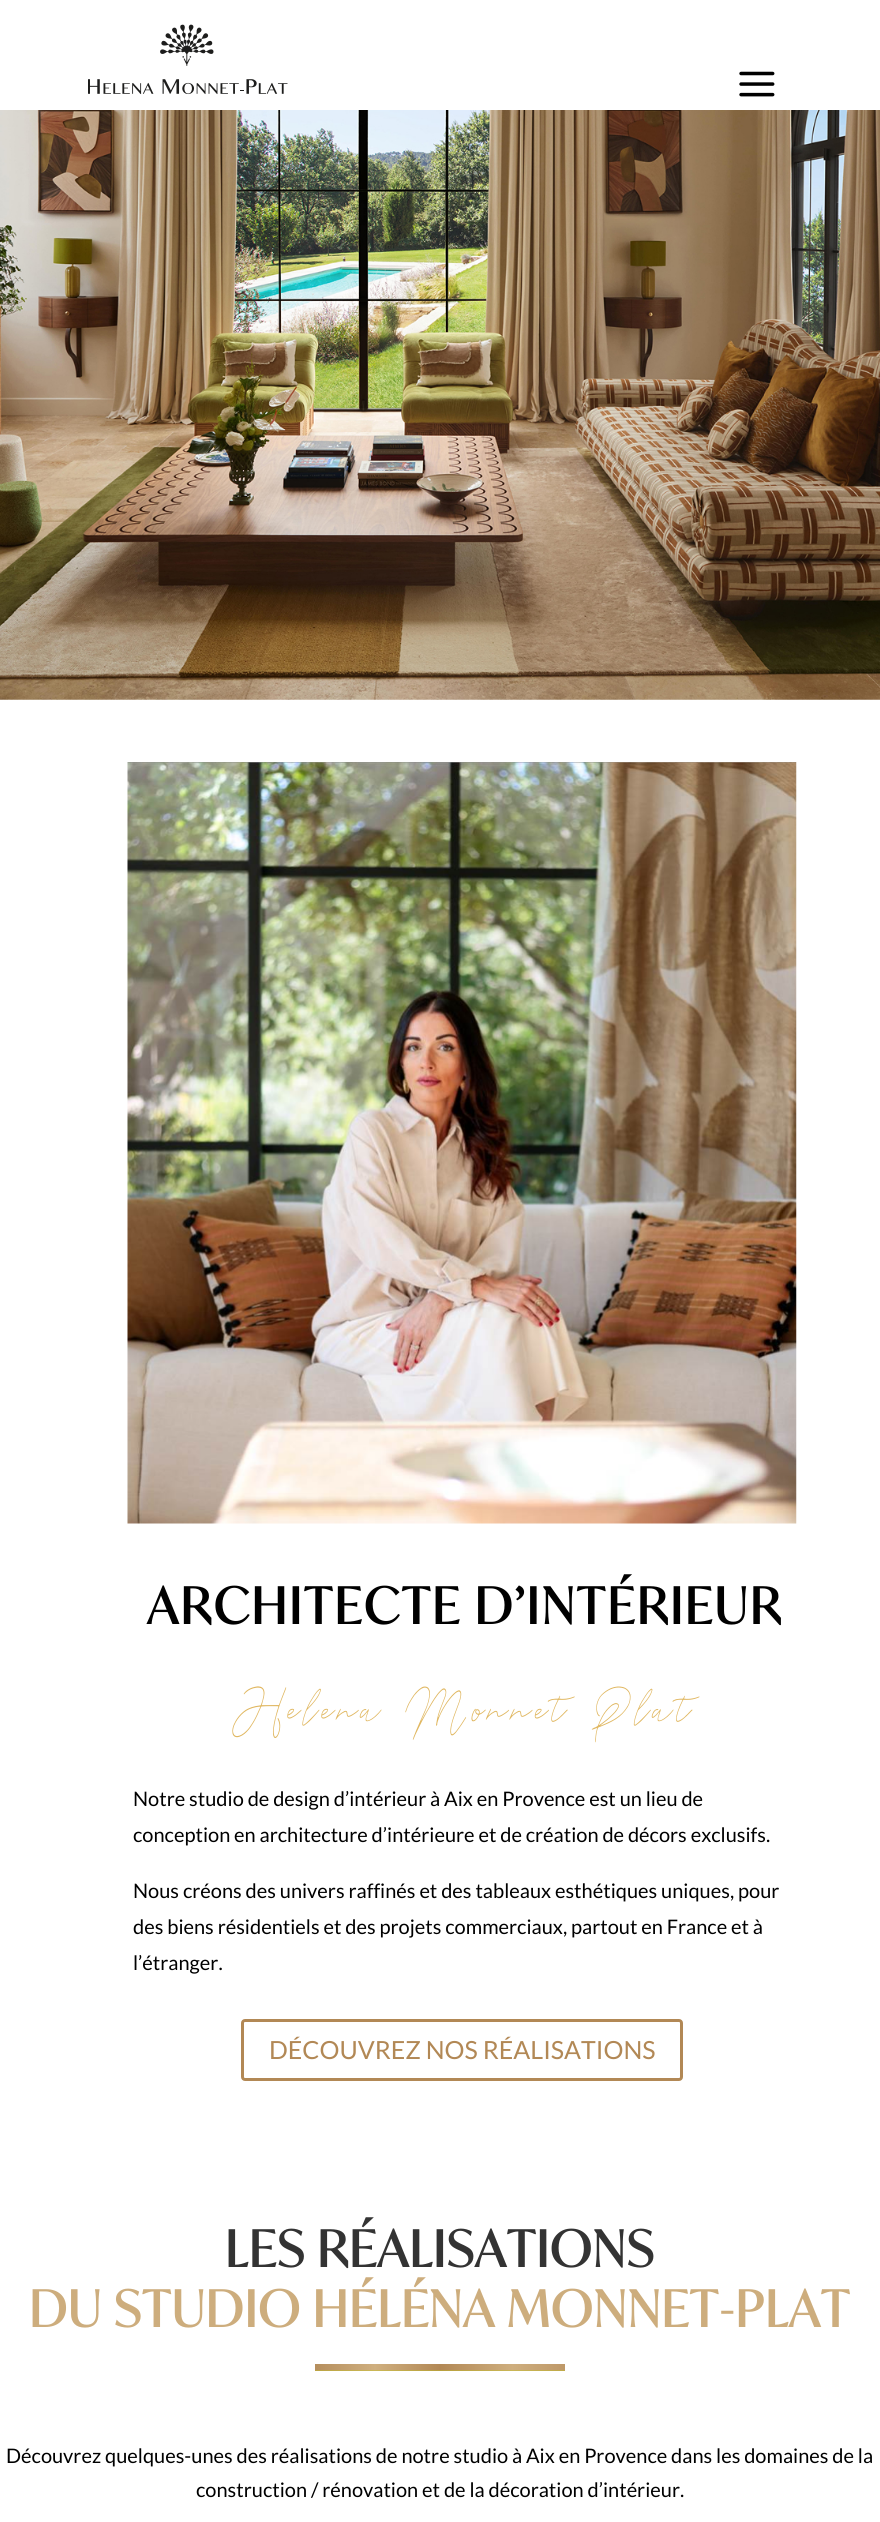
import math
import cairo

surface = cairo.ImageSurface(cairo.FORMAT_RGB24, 880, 2522)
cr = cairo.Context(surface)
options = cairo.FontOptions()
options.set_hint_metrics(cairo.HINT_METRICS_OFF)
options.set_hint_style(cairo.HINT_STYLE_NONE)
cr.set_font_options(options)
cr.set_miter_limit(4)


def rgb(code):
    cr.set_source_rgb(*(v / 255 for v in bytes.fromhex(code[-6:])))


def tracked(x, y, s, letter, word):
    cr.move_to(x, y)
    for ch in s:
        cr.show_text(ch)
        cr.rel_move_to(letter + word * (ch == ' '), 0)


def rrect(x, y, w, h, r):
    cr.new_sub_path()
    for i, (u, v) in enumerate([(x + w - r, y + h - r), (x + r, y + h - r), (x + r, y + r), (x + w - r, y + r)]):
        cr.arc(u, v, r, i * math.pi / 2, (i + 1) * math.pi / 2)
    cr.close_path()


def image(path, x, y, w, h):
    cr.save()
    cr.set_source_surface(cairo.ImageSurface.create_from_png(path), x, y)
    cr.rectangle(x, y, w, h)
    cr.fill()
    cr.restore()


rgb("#ffffff")
cr.paint()
image("img/1.png", 88, 24, 200, 71)
image("img/2.png", 739, 71, 36, 26)
image("img/3.png", 0, 110, 880, 590)
image("img/4.png", 127, 762, 670, 762)
rrect(242.5, 2020.5, 439, 59, 2.5)
rgb("#b28855")
cr.set_line_width(3)
cr.stroke()
gradient = cairo.LinearGradient(315, 2367, 565, 2367)
gradient.add_color_stop_rgba(0, 0.71, 0.557, 0.365, 1)
gradient.add_color_stop_rgba(0.24, 0.812, 0.686, 0.498, 1)
gradient.add_color_stop_rgba(0.5, 0.698, 0.533, 0.333, 1)
gradient.add_color_stop_rgba(0.79, 0.808, 0.682, 0.494, 1)
gradient.add_color_stop_rgba(1, 0.745, 0.596, 0.408, 1)
cr.set_source(gradient)
cr.rectangle(315, 2364, 250, 6)
cr.fill()
gradient = cairo.LinearGradient(315, 2367, 565, 2367)
gradient.add_color_stop_rgba(0, 0.733, 0.639, 0.259, 1)
gradient.add_color_stop_rgba(0.24, 0.796, 0.718, 0.337, 1)
gradient.add_color_stop_rgba(0.5, 0.725, 0.624, 0.239, 1)
gradient.add_color_stop_rgba(0.79, 0.792, 0.714, 0.337, 1)
gradient.add_color_stop_rgba(1, 0.753, 0.663, 0.282, 1)
cr.set_source(gradient)
cr.rectangle(315, 2370, 250, 1)
cr.fill()
cr.select_font_face("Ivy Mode", cairo.FONT_SLANT_NORMAL, cairo.FONT_WEIGHT_BOLD)
cr.set_font_size(50)
rgb("#000000")
tracked(147, 1624, "ARCHITECTE D’INTÉRIEUR", 2.5, 0)
cr.select_font_face("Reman")
rgb("#e0b760")
tracked(232, 1722, "Helena Monnet Plat", 5, 0)
cr.select_font_face("Lato")
cr.set_font_size(20)
rgb("#000000")
for x, y, s in [
    (133, 1806, "Notre studio de design d’intérieur à Aix en Provence est un lieu de"),
    (133, 1842, "conception en architecture d’intérieure et de création de décors exclusifs."),
    (133, 1898, "Nous créons des univers raffinés et des tableaux esthétiques uniques, pour"),
    (133, 1934, "des biens résidentiels et des projets commerciaux, partout en France et à"),
    (133, 1970, "l’étranger."),
]:
    cr.move_to(x, y)
    cr.show_text(s)
cr.set_font_size(25)
rgb("#b28855")
cr.move_to(269, 2059)
cr.show_text("DÉCOUVREZ NOS RÉALISATIONS")
cr.select_font_face("Ivy Mode", cairo.FONT_SLANT_NORMAL, cairo.FONT_WEIGHT_BOLD)
cr.set_font_size(50)
rgb("#333333")
tracked(225, 2267, "LES RÉALISATIONS", 1.25, 0)
rgb("#cdad7d")
tracked(29, 2327, "DU STUDIO HÉLÉNA MONNET-PLAT", 1.25, 0)
cr.select_font_face("Lato")
cr.set_font_size(20)
rgb("#000000")
cr.move_to(6, 2463)
cr.show_text("Découvrez quelques-unes des réalisations de notre studio à Aix en Provence dans les domaines de la")
cr.move_to(196, 2497)
cr.show_text("construction / rénovation et de la décoration d’intérieur.")
surface.write_to_png("page.png")
